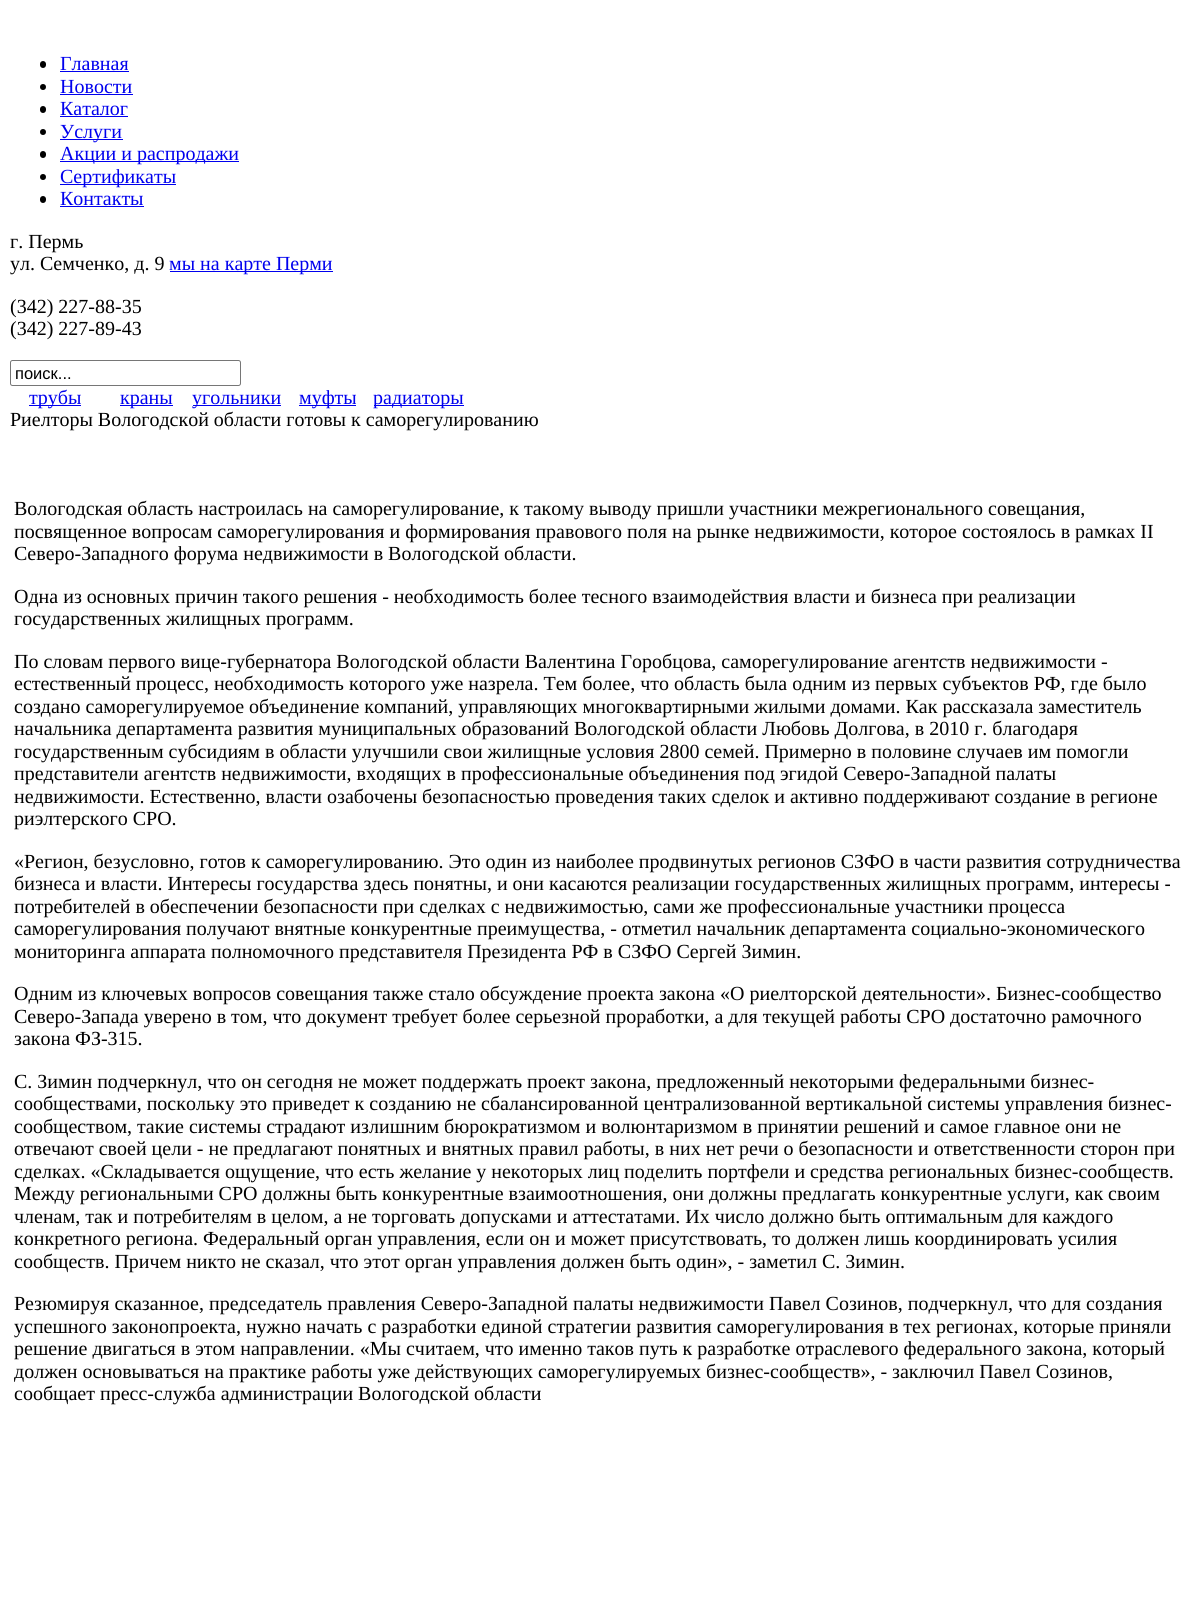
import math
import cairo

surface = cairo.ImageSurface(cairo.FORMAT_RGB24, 1203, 1601)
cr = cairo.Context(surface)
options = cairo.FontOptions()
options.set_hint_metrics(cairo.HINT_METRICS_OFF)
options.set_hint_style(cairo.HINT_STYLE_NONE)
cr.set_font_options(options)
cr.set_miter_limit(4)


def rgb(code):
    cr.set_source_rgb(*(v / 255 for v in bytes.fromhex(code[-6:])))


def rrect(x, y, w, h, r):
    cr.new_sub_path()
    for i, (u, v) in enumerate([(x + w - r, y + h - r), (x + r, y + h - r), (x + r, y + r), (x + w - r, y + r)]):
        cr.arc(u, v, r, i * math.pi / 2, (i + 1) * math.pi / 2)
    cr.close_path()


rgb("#ffffff")
cr.paint()
rgb("#000000")
rrect(40, 61, 6, 7, 3)
cr.fill()
rgb("#0000ee")
cr.rectangle(60, 71, 69, 1)
cr.fill()
rgb("#000000")
cr.arc(43, 87, 3, 0, 2 * math.pi)
cr.fill()
rgb("#0000ee")
cr.rectangle(60, 94, 73, 1)
cr.fill()
rgb("#000000")
rrect(40, 106, 6, 7, 3)
cr.fill()
rgb("#0000ee")
cr.rectangle(60, 116, 68, 1)
cr.fill()
rgb("#000000")
cr.arc(43, 132, 3, 0, 2 * math.pi)
cr.fill()
rgb("#0000ee")
cr.rectangle(60, 139, 63, 1)
cr.fill()
rgb("#000000")
rrect(40, 151, 6, 7, 3)
cr.fill()
rgb("#0000ee")
cr.rectangle(60, 161, 179, 1)
cr.fill()
rgb("#000000")
cr.arc(43, 177, 3, 0, 2 * math.pi)
cr.fill()
rgb("#0000ee")
cr.rectangle(60, 184, 116, 1)
cr.fill()
rgb("#000000")
rrect(40, 196, 6, 7, 3)
cr.fill()
rgb("#0000ee")
cr.rectangle(60, 206, 84, 1)
cr.fill()
cr.rectangle(170, 271, 163, 1)
cr.fill()
rrect(10.5, 360.5, 230, 25, 2)
rgb("#767676")
cr.set_line_width(1)
cr.stroke()
for x, y, w, h, color in [
    (29, 405, 52, 1, "#0000ee"),
    (120, 405, 53, 1, "#0000ee"),
    (193, 405, 88, 1, "#0000ee"),
    (299, 405, 57, 1, "#0000ee"),
    (374, 405, 90, 1, "#0000ee"),
]:
    rgb(color)
    cr.rectangle(x, y, w, h)
    cr.fill()
cr.select_font_face("Liberation Serif")
cr.set_font_size(20)
for x, y, s in [
    (60, 70, "Главная"),
    (60, 93, "Новости"),
    (60, 115, "Каталог"),
    (60, 138, "Услуги"),
    (60, 160, "Акции и распродажи"),
    (60, 183, "Сертификаты"),
    (60, 205, "Контакты"),
]:
    cr.move_to(x, y)
    cr.show_text(s)
rgb("#000000")
cr.move_to(10, 248)
cr.show_text("г. Пермь")
cr.move_to(10, 270)
cr.show_text("ул. Семченко, д. 9")
rgb("#0000ee")
cr.move_to(169, 270)
cr.show_text("мы на карте Перми")
rgb("#000000")
cr.move_to(10, 313)
cr.show_text("(342) 227-88-35")
cr.move_to(10, 335)
cr.show_text("(342) 227-89-43")
cr.select_font_face("Liberation Sans")
cr.set_font_size(16.5)
cr.move_to(15, 379)
cr.show_text("поиск...")
cr.select_font_face("Liberation Serif")
cr.set_font_size(20)
rgb("#0000ee")
for x, y, s in [
    (29, 404, "трубы"),
    (120, 404, "краны"),
    (192, 404, "угольники"),
    (299, 404, "муфты"),
    (373, 404, "радиаторы"),
]:
    cr.move_to(x, y)
    cr.show_text(s)
rgb("#000000")
for x, y, s in [
    (10, 426, "Риелторы Вологодской области готовы к саморегулированию"),
    (14, 515, "Вологодская область настроилась на саморегулирование, к такому выводу пришли участники межрегионального совещания,"),
    (14, 538, "посвященное вопросам саморегулирования и формирования правового поля на рынке недвижимости, которое состоялось в рамках II"),
    (14, 560, "Северо-Западного форума недвижимости в Вологодской области."),
    (14, 603, "Одна из основных причин такого решения - необходимость более тесного взаимодействия власти и бизнеса при реализации"),
    (14, 625, "государственных жилищных программ."),
    (14, 668, "По словам первого вице-губернатора Вологодской области Валентина Горобцова, саморегулирование агентств недвижимости -"),
    (14, 690, "естественный процесс, необходимость которого уже назрела. Тем более, что область была одним из первых субъектов РФ, где было"),
    (14, 713, "создано саморегулируемое объединение компаний, управляющих многоквартирными жилыми домами. Как рассказала заместитель"),
    (14, 735, "начальника департамента развития муниципальных образований Вологодской области Любовь Долгова, в 2010 г. благодаря"),
    (14, 758, "государственным субсидиям в области улучшили свои жилищные условия 2800 семей. Примерно в половине случаев им помогли"),
    (14, 780, "представители агентств недвижимости, входящих в профессиональные объединения под эгидой Северо-Западной палаты"),
    (14, 803, "недвижимости. Естественно, власти озабочены безопасностью проведения таких сделок и активно поддерживают создание в регионе"),
    (14, 825, "риэлтерского СРО."),
    (14, 868, "«Регион, безусловно, готов к саморегулированию. Это один из наиболее продвинутых регионов СЗФО в части развития сотрудничества"),
    (14, 890, "бизнеса и власти. Интересы государства здесь понятны, и они касаются реализации государственных жилищных программ, интересы -"),
    (14, 913, "потребителей в обеспечении безопасности при сделках с недвижимостью, сами же профессиональные участники процесса"),
    (14, 935, "саморегулирования получают внятные конкурентные преимущества, - отметил начальник департамента социально-экономического"),
    (14, 958, "мониторинга аппарата полномочного представителя Президента РФ в СЗФО Сергей Зимин."),
    (14, 1000, "Одним из ключевых вопросов совещания также стало обсуждение проекта закона «О риелторской деятельности». Бизнес-сообщество"),
    (14, 1023, "Северо-Запада уверено в том, что документ требует более серьезной проработки, а для текущей работы СРО достаточно рамочного"),
    (14, 1045, "закона ФЗ-315."),
    (14, 1088, "С. Зимин подчеркнул, что он сегодня не может поддержать проект закона, предложенный некоторыми федеральными бизнес-"),
    (14, 1110, "сообществами, поскольку это приведет к созданию не сбалансированной централизованной вертикальной системы управления бизнес-"),
    (14, 1133, "сообществом, такие системы страдают излишним бюрократизмом и волюнтаризмом в принятии решений и самое главное они не"),
    (14, 1155, "отвечают своей цели - не предлагают понятных и внятных правил работы, в них нет речи о безопасности и ответственности сторон при"),
    (14, 1178, "сделках. «Складывается ощущение, что есть желание у некоторых лиц поделить портфели и средства региональных бизнес-сообществ."),
    (14, 1200, "Между региональными СРО должны быть конкурентные взаимоотношения, они должны предлагать конкурентные услуги, как своим"),
    (14, 1223, "членам, так и потребителям в целом, а не торговать допусками и аттестатами. Их число должно быть оптимальным для каждого"),
    (14, 1245, "конкретного региона. Федеральный орган управления, если он и может присутствовать, то должен лишь координировать усилия"),
    (14, 1268, "сообществ. Причем никто не сказал, что этот орган управления должен быть один», - заметил С. Зимин."),
    (14, 1310, "Резюмируя сказанное, председатель правления Северо-Западной палаты недвижимости Павел Созинов, подчеркнул, что для создания"),
    (14, 1333, "успешного законопроекта, нужно начать с разработки единой стратегии развития саморегулирования в тех регионах, которые приняли"),
    (14, 1355, "решение двигаться в этом направлении. «Мы считаем, что именно таков путь к разработке отраслевого федерального закона, который"),
    (14, 1378, "должен основываться на практике работы уже действующих саморегулируемых бизнес-сообществ», - заключил Павел Созинов,"),
    (14, 1400, "сообщает пресс-служба администрации Вологодской области"),
]:
    cr.move_to(x, y)
    cr.show_text(s)
surface.write_to_png("page.png")
